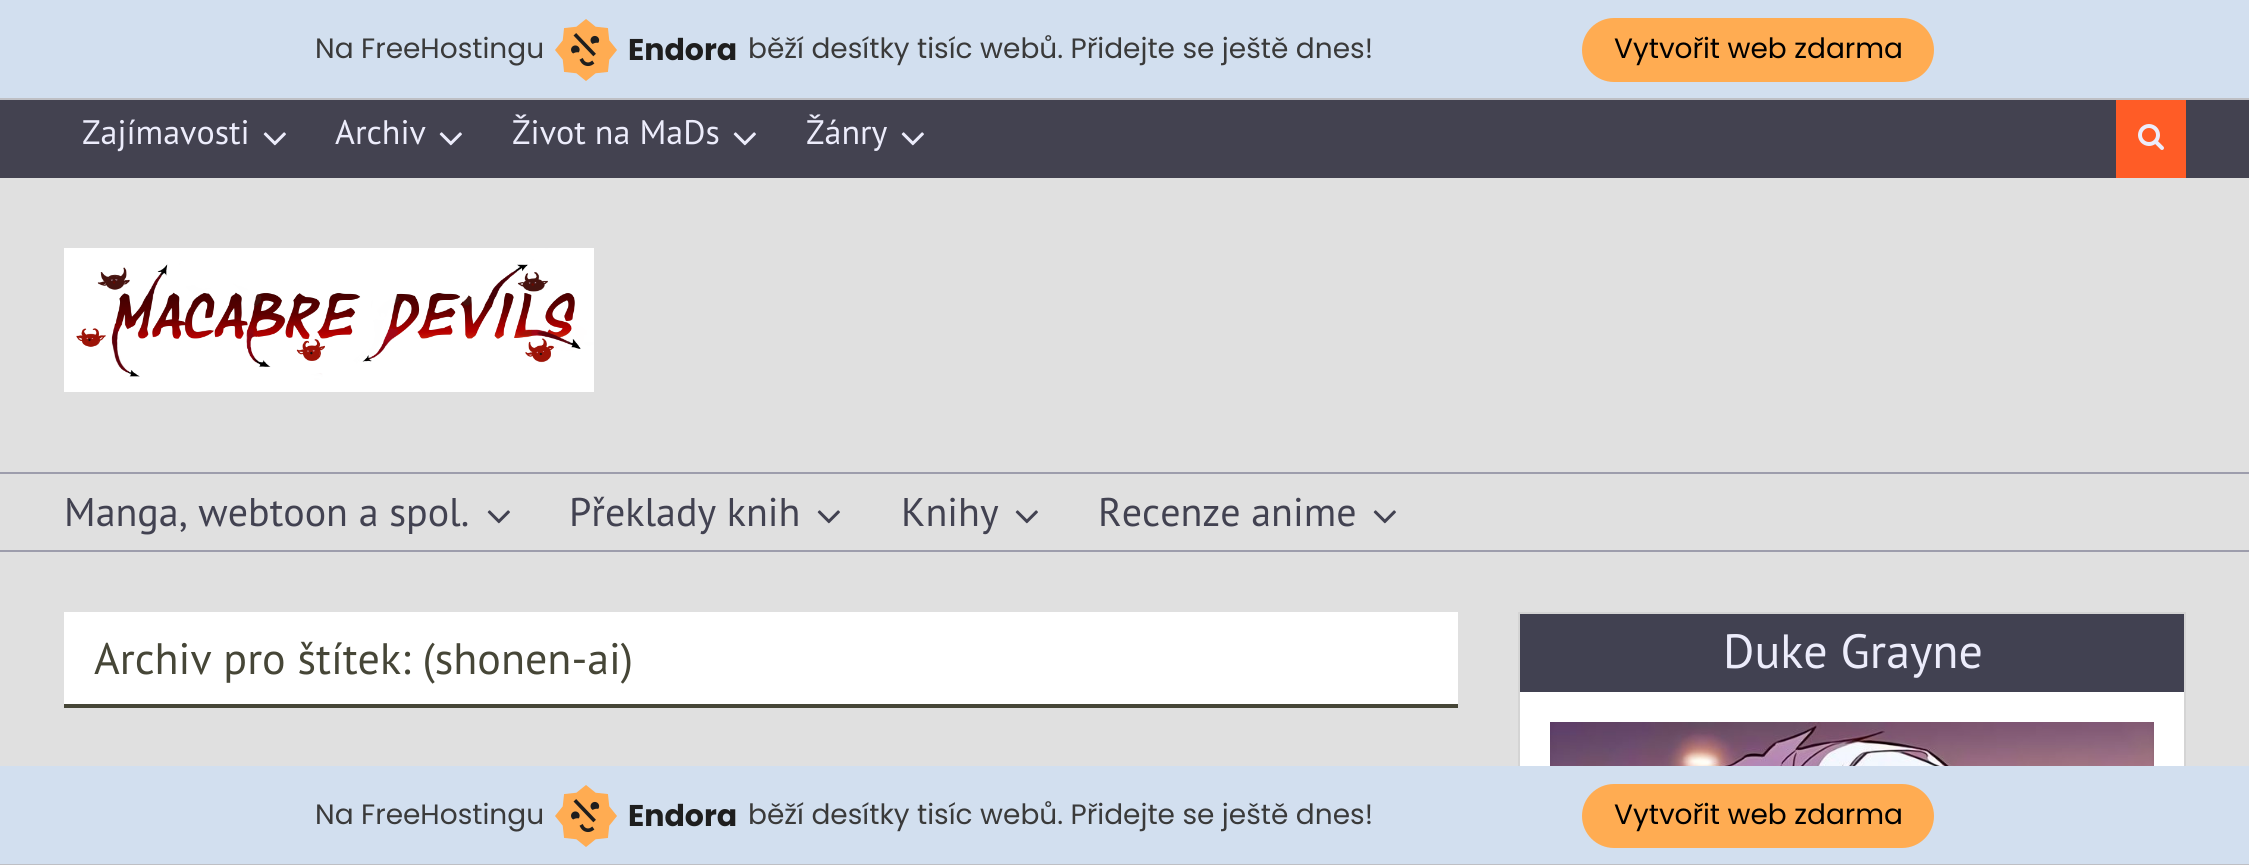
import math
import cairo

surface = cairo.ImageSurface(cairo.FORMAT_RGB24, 2249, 865)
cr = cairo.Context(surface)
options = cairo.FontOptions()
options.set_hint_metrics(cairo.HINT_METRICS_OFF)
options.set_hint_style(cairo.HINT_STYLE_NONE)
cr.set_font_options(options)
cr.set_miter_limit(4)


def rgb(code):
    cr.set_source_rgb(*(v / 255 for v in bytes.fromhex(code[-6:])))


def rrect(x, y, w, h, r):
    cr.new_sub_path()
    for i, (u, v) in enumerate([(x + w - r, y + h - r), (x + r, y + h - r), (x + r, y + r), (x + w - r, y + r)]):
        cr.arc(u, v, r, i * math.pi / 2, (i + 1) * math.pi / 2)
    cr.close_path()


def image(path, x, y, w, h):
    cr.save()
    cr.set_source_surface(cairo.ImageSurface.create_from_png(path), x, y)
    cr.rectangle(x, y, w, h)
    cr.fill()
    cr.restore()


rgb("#e0e0e0")
cr.paint()
rgb("#d2dfef")
cr.rectangle(0, 0, 2249, 98)
cr.fill()
rgb("#bebfc4")
cr.rectangle(0, 98, 2249, 2)
cr.fill()
image("img/1.png", 555, 19, 62, 62)
rgb("#ffac52")
rrect(1582, 18, 352, 64, 32)
cr.fill()
rgb("#434250")
cr.rectangle(0, 100, 2249, 78)
cr.fill()
image("img/2.png", 263, 132, 23, 14)
image("img/2.png", 439, 132, 23, 14)
image("img/2.png", 733, 132, 23, 14)
image("img/2.png", 901, 132, 23, 14)
rgb("#ff5c26")
cr.rectangle(2116, 100, 70, 78)
cr.fill()
image("img/3.png", 2138, 124, 26, 26)
image("img/4.png", 64, 248, 530, 144)
rgb("#9d9dac")
cr.rectangle(0, 472, 2249, 2)
cr.fill()
cr.rectangle(0, 550, 2249, 2)
cr.fill()
image("img/5.png", 487, 510, 23, 14)
image("img/5.png", 817, 510, 23, 14)
image("img/5.png", 1015, 510, 23, 14)
image("img/5.png", 1373, 510, 23, 14)
for x, y, w, h, color in [
    (64, 612, 1394, 92, "#ffffff"),
    (64, 704, 1394, 4, "#464637"),
    (1520, 692, 664, 74, "#ffffff"),
]:
    rgb(color)
    cr.rectangle(x, y, w, h)
    cr.fill()
cr.rectangle(1519, 613, 666, 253)
rgb("#d4d4d4")
cr.stroke()
rgb("#414151")
cr.rectangle(1520, 614, 664, 78)
cr.fill()
image("img/6.png", 1550, 722, 604, 44)
rgb("#d2dfef")
cr.rectangle(0, 766, 2249, 98)
cr.fill()
rgb("#bebfc4")
cr.rectangle(0, 864, 2249, 1)
cr.fill()
image("img/1.png", 555, 785, 62, 62)
rgb("#ffac52")
rrect(1582, 784, 352, 64, 32)
cr.fill()
cr.select_font_face("Poppins")
cr.set_font_size(28)
rgb("#3a3a3a")
cr.move_to(315, 58)
cr.show_text("Na FreeHostingu")
cr.select_font_face("Poppins", cairo.FONT_SLANT_NORMAL, cairo.FONT_WEIGHT_BOLD)
cr.set_font_size(30)
rgb("#1e1e1e")
cr.move_to(628, 60)
cr.show_text("Endora")
cr.select_font_face("Poppins")
cr.set_font_size(28)
rgb("#3a3a3a")
cr.move_to(748, 58)
cr.show_text("běží desítky tisíc webů. Přidejte se ještě dnes!")
rgb("#000000")
cr.move_to(1614, 58)
cr.show_text("Vytvořit web zdarma")
cr.select_font_face("PT Sans")
cr.set_font_size(34)
rgb("#ececfb")
for x, y, s in [
    (82, 144, "Zajímavosti"),
    (335, 144, "Archiv"),
    (512, 144, "Život na MaDs"),
    (806, 144, "Žánry"),
]:
    cr.move_to(x, y)
    cr.show_text(s)
cr.set_font_size(40)
rgb("#424251")
for x, y, s in [
    (64, 526, "Manga, webtoon a spol."),
    (569, 526, "Překlady knih"),
    (901, 526, "Knihy"),
    (1098, 526, "Recenze anime"),
]:
    cr.move_to(x, y)
    cr.show_text(s)
cr.set_font_size(44)
rgb("#464637")
cr.move_to(94, 674)
cr.show_text("Archiv pro štítek: (shonen-ai)")
cr.set_font_size(48)
rgb("#ececfb")
cr.move_to(1723, 668)
cr.show_text("Duke Grayne")
cr.select_font_face("Poppins")
cr.set_font_size(28)
rgb("#3a3a3a")
cr.move_to(315, 824)
cr.show_text("Na FreeHostingu")
cr.select_font_face("Poppins", cairo.FONT_SLANT_NORMAL, cairo.FONT_WEIGHT_BOLD)
cr.set_font_size(30)
rgb("#1e1e1e")
cr.move_to(628, 826)
cr.show_text("Endora")
cr.select_font_face("Poppins")
cr.set_font_size(28)
rgb("#3a3a3a")
cr.move_to(748, 824)
cr.show_text("běží desítky tisíc webů. Přidejte se ještě dnes!")
rgb("#000000")
cr.move_to(1614, 824)
cr.show_text("Vytvořit web zdarma")
surface.write_to_png("page.png")
